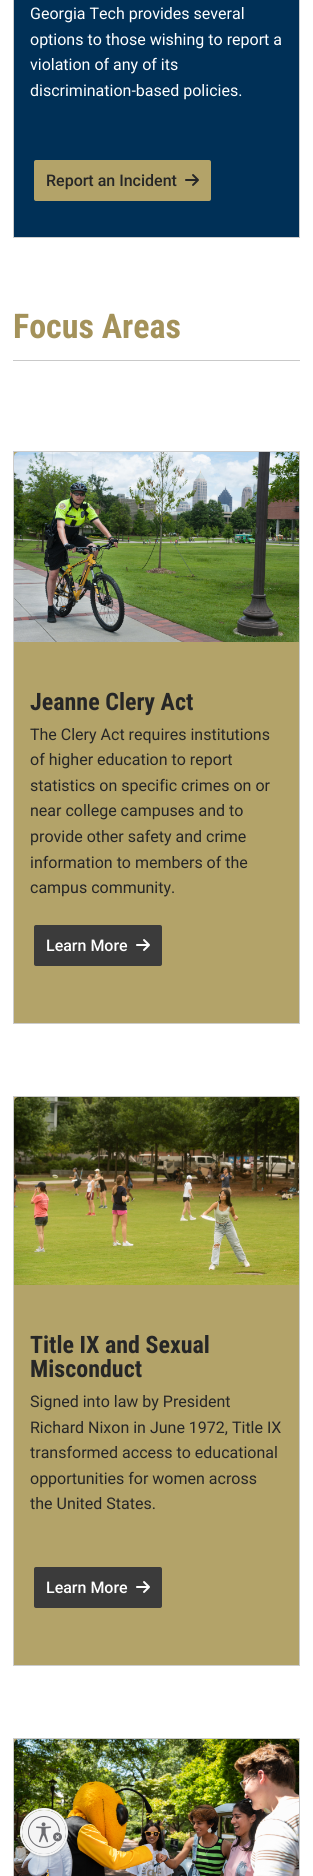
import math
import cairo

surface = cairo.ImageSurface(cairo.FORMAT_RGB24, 313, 1876)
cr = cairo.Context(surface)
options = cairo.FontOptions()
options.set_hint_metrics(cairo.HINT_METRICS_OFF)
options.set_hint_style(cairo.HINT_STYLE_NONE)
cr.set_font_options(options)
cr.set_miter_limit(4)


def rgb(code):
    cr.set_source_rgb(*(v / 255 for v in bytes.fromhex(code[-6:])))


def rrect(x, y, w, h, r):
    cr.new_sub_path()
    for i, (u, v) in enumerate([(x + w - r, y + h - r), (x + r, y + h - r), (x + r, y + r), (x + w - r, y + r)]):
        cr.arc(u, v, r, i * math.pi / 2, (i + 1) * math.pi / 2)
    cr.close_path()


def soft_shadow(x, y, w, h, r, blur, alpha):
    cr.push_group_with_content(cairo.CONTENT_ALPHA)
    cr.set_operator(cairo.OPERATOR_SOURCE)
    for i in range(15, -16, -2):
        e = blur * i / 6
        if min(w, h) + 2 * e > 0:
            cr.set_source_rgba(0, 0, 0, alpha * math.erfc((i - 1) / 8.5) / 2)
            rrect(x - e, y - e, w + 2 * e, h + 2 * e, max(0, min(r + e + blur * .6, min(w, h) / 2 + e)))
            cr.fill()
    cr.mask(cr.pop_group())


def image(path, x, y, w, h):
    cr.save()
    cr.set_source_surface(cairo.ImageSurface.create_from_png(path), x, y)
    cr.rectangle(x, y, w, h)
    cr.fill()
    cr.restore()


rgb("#ffffff")
cr.paint()
rgb("#003057")
cr.rectangle(13.5, -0.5, 286, 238)
cr.fill_preserve()
rgb("#cccccc")
cr.set_line_width(1)
cr.stroke()
rgb("#b3a369")
rrect(34, 160, 177, 41, 2)
cr.fill()
image("img/1.png", 185, 174, 14, 12)
rgb("#c9c9c9")
cr.rectangle(13, 360, 287, 1)
cr.fill()
rgb("#b3a369")
cr.rectangle(13.5, 451.5, 286, 572)
cr.fill_preserve()
rgb("#cccccc")
cr.stroke()
image("img/2.png", 14, 452, 285, 190)
rgb("#3b3b3b")
rrect(34, 925, 128, 41, 2)
cr.fill()
image("img/3.png", 136, 939, 14, 12)
rgb("#b3a369")
cr.rectangle(13.5, 1096.5, 286, 569)
cr.fill_preserve()
rgb("#cccccc")
cr.stroke()
image("img/4.png", 14, 1097, 285, 188)
rgb("#3b3b3b")
rrect(34, 1567, 128, 41, 2)
cr.fill()
image("img/3.png", 136, 1581, 14, 12)
rgb("#b3a369")
cr.rectangle(14, 1739, 285, 5)
cr.fill()
cr.rectangle(13.5, 1738.5, 286, 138)
rgb("#cccccc")
cr.stroke()
image("img/5.png", 14, 1739, 285, 137)
rgb("#000000")
soft_shadow(20, 1809, 48, 48, 24, 1, 0.24)
cr.arc(44, 1832, 23, 0, 2 * math.pi)
rgb("#f5f5f5")
cr.set_line_width(2)
cr.stroke()
cr.save()
rrect(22, 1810, 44, 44, 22)
cr.clip()
rgb("#000000")
soft_shadow(22, 1811, 44, 44, 22, 1, 0.24)
cr.restore()
cr.arc(44, 1832, 22, 0, 2 * math.pi)
cr.fill()
image("img/6.png", 28, 1816, 34, 32)
cr.select_font_face("Roboto")
cr.set_font_size(16)
rgb("#ffffff")
for x, y, s in [
    (30, 19, "Georgia Tech provides several"),
    (30, 45, "options to those wishing to report a"),
    (30, 70, "violation of any of its"),
    (30, 96, "discrimination-based policies."),
]:
    cr.move_to(x, y)
    cr.show_text(s)
cr.select_font_face("Roboto Medium")
rgb("#262626")
cr.move_to(46, 186)
cr.show_text("Report an Incident")
cr.select_font_face("Roboto Condensed", cairo.FONT_SLANT_NORMAL, cairo.FONT_WEIGHT_BOLD)
cr.set_font_size(34)
rgb("#a4925a")
cr.move_to(13, 338)
cr.show_text("Focus Areas")
cr.set_font_size(24)
rgb("#262626")
cr.move_to(30, 710)
cr.show_text("Jeanne Clery Act")
cr.select_font_face("Roboto")
cr.set_font_size(16)
for x, y, s in [
    (30, 740, "The Clery Act requires institutions"),
    (30, 765, "of higher education to report"),
    (30, 791, "statistics on specific crimes on or"),
    (30, 816, "near college campuses and to"),
    (30, 842, "provide other safety and crime"),
    (30, 868, "information to members of the"),
    (30, 893, "campus community."),
]:
    cr.move_to(x, y)
    cr.show_text(s)
cr.select_font_face("Roboto Medium")
rgb("#ffffff")
cr.move_to(46, 951)
cr.show_text("Learn More")
cr.select_font_face("Roboto Condensed", cairo.FONT_SLANT_NORMAL, cairo.FONT_WEIGHT_BOLD)
cr.set_font_size(24)
rgb("#262626")
cr.move_to(30, 1353)
cr.show_text("Title IX and Sexual")
cr.move_to(30, 1377)
cr.show_text("Misconduct")
cr.select_font_face("Roboto")
cr.set_font_size(16)
for x, y, s in [
    (30, 1407, "Signed into law by President"),
    (30, 1433, "Richard Nixon in June 1972, Title IX"),
    (30, 1458, "transformed access to educational"),
    (30, 1484, "opportunities for women across"),
    (30, 1509, "the United States."),
]:
    cr.move_to(x, y)
    cr.show_text(s)
cr.select_font_face("Roboto Medium")
rgb("#ffffff")
cr.move_to(46, 1593)
cr.show_text("Learn More")
surface.write_to_png("page.png")
